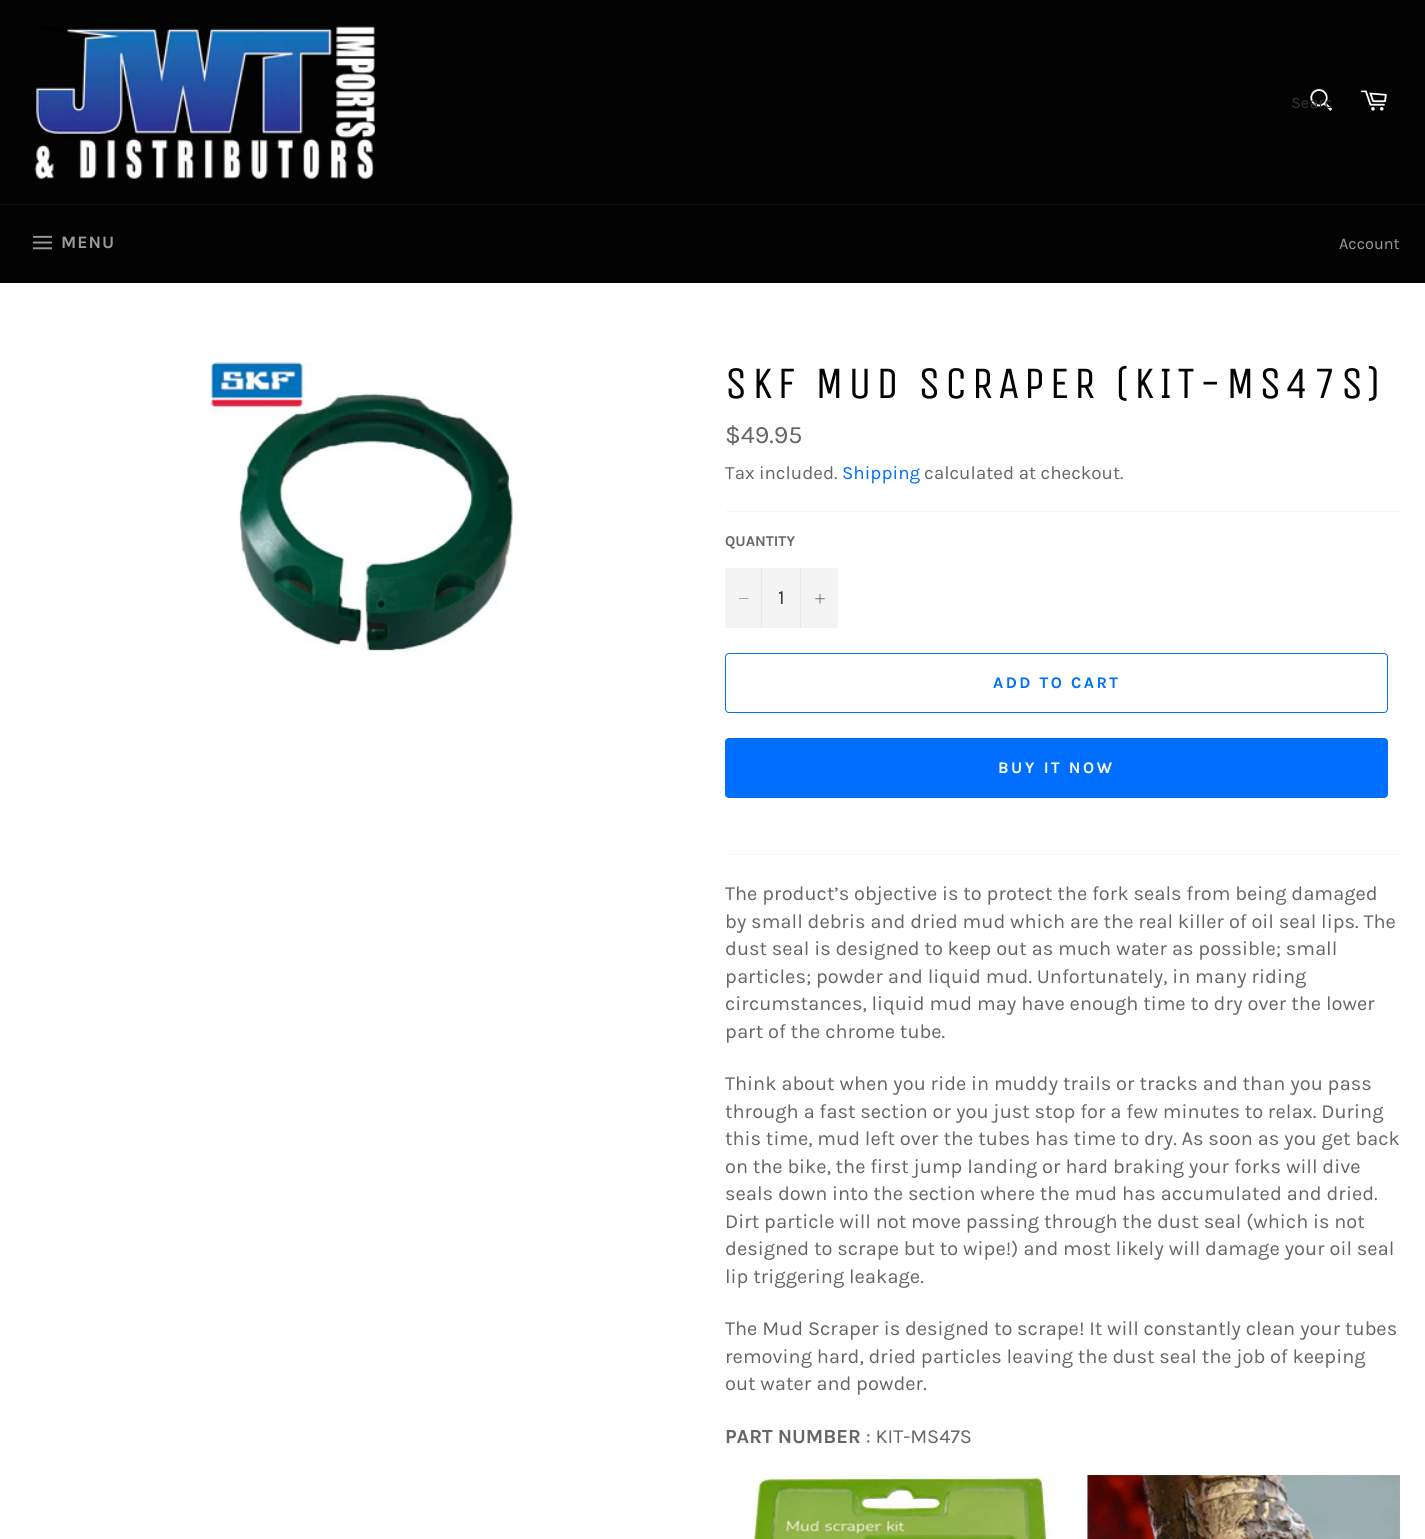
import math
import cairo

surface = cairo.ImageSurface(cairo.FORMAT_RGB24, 1425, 1539)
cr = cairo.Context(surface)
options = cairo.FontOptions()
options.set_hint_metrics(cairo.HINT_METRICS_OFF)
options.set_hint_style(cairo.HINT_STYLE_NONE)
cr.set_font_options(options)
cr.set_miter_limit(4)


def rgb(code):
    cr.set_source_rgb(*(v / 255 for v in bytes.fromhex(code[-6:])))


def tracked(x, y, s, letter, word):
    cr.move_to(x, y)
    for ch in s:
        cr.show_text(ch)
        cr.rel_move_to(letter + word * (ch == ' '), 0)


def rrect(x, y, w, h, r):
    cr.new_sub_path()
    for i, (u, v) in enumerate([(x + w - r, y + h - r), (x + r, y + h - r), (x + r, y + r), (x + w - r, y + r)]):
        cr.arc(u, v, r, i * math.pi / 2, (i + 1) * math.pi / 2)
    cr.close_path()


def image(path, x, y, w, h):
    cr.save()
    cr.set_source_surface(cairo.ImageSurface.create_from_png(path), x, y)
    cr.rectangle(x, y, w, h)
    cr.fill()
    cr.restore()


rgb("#030303")
cr.paint()
image("img/1.png", 34, 26, 341, 153)
image("img/2.png", 1310, 89, 22, 22)
image("img/3.png", 1361, 90, 26, 21)
rgb("#101010")
cr.rectangle(0, 204, 1425, 1)
cr.fill()
image("img/4.png", 32, 235, 21, 15)
rgb("#ffffff")
cr.rectangle(0, 283, 1425, 1256)
cr.fill()
image("img/5.png", 210, 361, 310, 291)
for x, y, w, h, color in [
    (725, 511, 675, 1, "#f7f7f7"),
    (725, 568, 113, 60, "#f4f4f4"),
    (761, 568, 1, 60, "#e7e7e7"),
]:
    rgb(color)
    cr.rectangle(x, y, w, h)
    cr.fill()
rgb("#666666")
cr.set_fill_rule(cairo.FILL_RULE_EVEN_ODD)
cr.new_path()
cr.move_to(748.5, 598.5)
cr.line_to(748.5, 599)
cr.line_to(739, 599)
cr.line_to(739, 598.5)
cr.close_path()
cr.fill()
rgb("#e7e7e7")
cr.rectangle(800, 568, 1, 60)
cr.fill()
image("img/6.png", 815, 594, 10, 10)
rrect(725.5, 653.5, 662, 59, 3.5)
rgb("#006eff")
cr.set_line_width(1)
cr.stroke()
rrect(725, 738, 663, 60, 4)
cr.fill()
rgb("#f7f7f7")
cr.rectangle(725, 854, 675, 1)
cr.fill()
image("img/7.png", 753, 1475, 647, 64)
cr.save()
cr.set_fill_rule(cairo.FILL_RULE_WINDING)
cr.rectangle(1291, 93, 40, 18)
cr.clip()
cr.select_font_face("Karla")
cr.set_font_size(16.25)
rgb("#333333")
cr.move_to(1291, 108)
cr.show_text("Searc")
cr.restore()
cr.select_font_face("Karla", cairo.FONT_SLANT_NORMAL, cairo.FONT_WEIGHT_BOLD)
cr.set_font_size(17.5)
rgb("#9a9a9a")
tracked(61, 248, "MENU", 1, 0)
cr.select_font_face("Karla")
cr.set_font_size(16.25)
cr.move_to(1339, 249)
cr.show_text("Account")
cr.select_font_face("Unica One")
cr.set_font_size(45)
rgb("#030303")
tracked(725, 398, "SKF MUD SCRAPER (KIT-MS47S)", 4.5, 0)
cr.select_font_face("Karla")
cr.set_font_size(25)
rgb("#666666")
cr.move_to(725, 443)
cr.show_text("$49.95")
cr.set_font_size(18.75)
cr.move_to(725, 479)
cr.show_text("Tax included.")
rgb("#006eff")
cr.move_to(842, 479)
cr.show_text("Shipping")
rgb("#666666")
cr.move_to(924, 479)
cr.show_text("calculated at checkout.")
cr.select_font_face("Karla", cairo.FONT_SLANT_NORMAL, cairo.FONT_WEIGHT_BOLD)
cr.set_font_size(15)
cr.move_to(725, 546)
cr.show_text("QUANTITY")
cr.select_font_face("Karla")
cr.set_font_size(20)
rgb("#333333")
cr.move_to(778, 604)
cr.show_text("1")
cr.select_font_face("Karla", cairo.FONT_SLANT_NORMAL, cairo.FONT_WEIGHT_BOLD)
cr.set_font_size(16.25)
rgb("#006eff")
tracked(993, 688, "ADD TO CART", 2.5, 0)
rgb("#ffffff")
tracked(998, 773, "BUY IT NOW", 2.5, 0)
cr.select_font_face("Karla")
cr.set_font_size(20)
rgb("#666666")
for x, y, s in [
    (725, 900, "The product’s objective is to protect the fork seals from being damaged"),
    (725, 928, "by small debris and dried mud which are the real killer of oil seal lips. The"),
    (725, 955, "dust seal is designed to keep out as much water as possible; small"),
    (725, 983, "particles; powder and liquid mud. Unfortunately, in many riding"),
    (725, 1010, "circumstances, liquid mud may have enough time to dry over the lower"),
    (725, 1038, "part of the chrome tube."),
    (725, 1090, "Think about when you ride in muddy trails or tracks and than you pass"),
    (725, 1118, "through a fast section or you just stop for a few minutes to relax. During"),
    (725, 1145, "this time, mud left over the tubes has time to dry. As soon as you get back"),
    (725, 1173, "on the bike, the first jump landing or hard braking your forks will dive"),
    (725, 1200, "seals down into the section where the mud has accumulated and dried."),
    (725, 1228, "Dirt particle will not move passing through the dust seal (which is not"),
    (725, 1255, "designed to scrape but to wipe!) and most likely will damage your oil seal"),
    (725, 1283, "lip triggering leakage."),
    (725, 1335, "The Mud Scraper is designed to scrape! It will constantly clean your tubes"),
    (725, 1363, "removing hard, dried particles leaving the dust seal the job of keeping"),
    (725, 1390, "out water and powder."),
]:
    cr.move_to(x, y)
    cr.show_text(s)
cr.select_font_face("Karla", cairo.FONT_SLANT_NORMAL, cairo.FONT_WEIGHT_BOLD)
cr.move_to(725, 1443)
cr.show_text("PART NUMBER")
cr.select_font_face("Karla")
cr.move_to(866, 1443)
cr.show_text(": KIT-MS47S")
surface.write_to_png("page.png")
